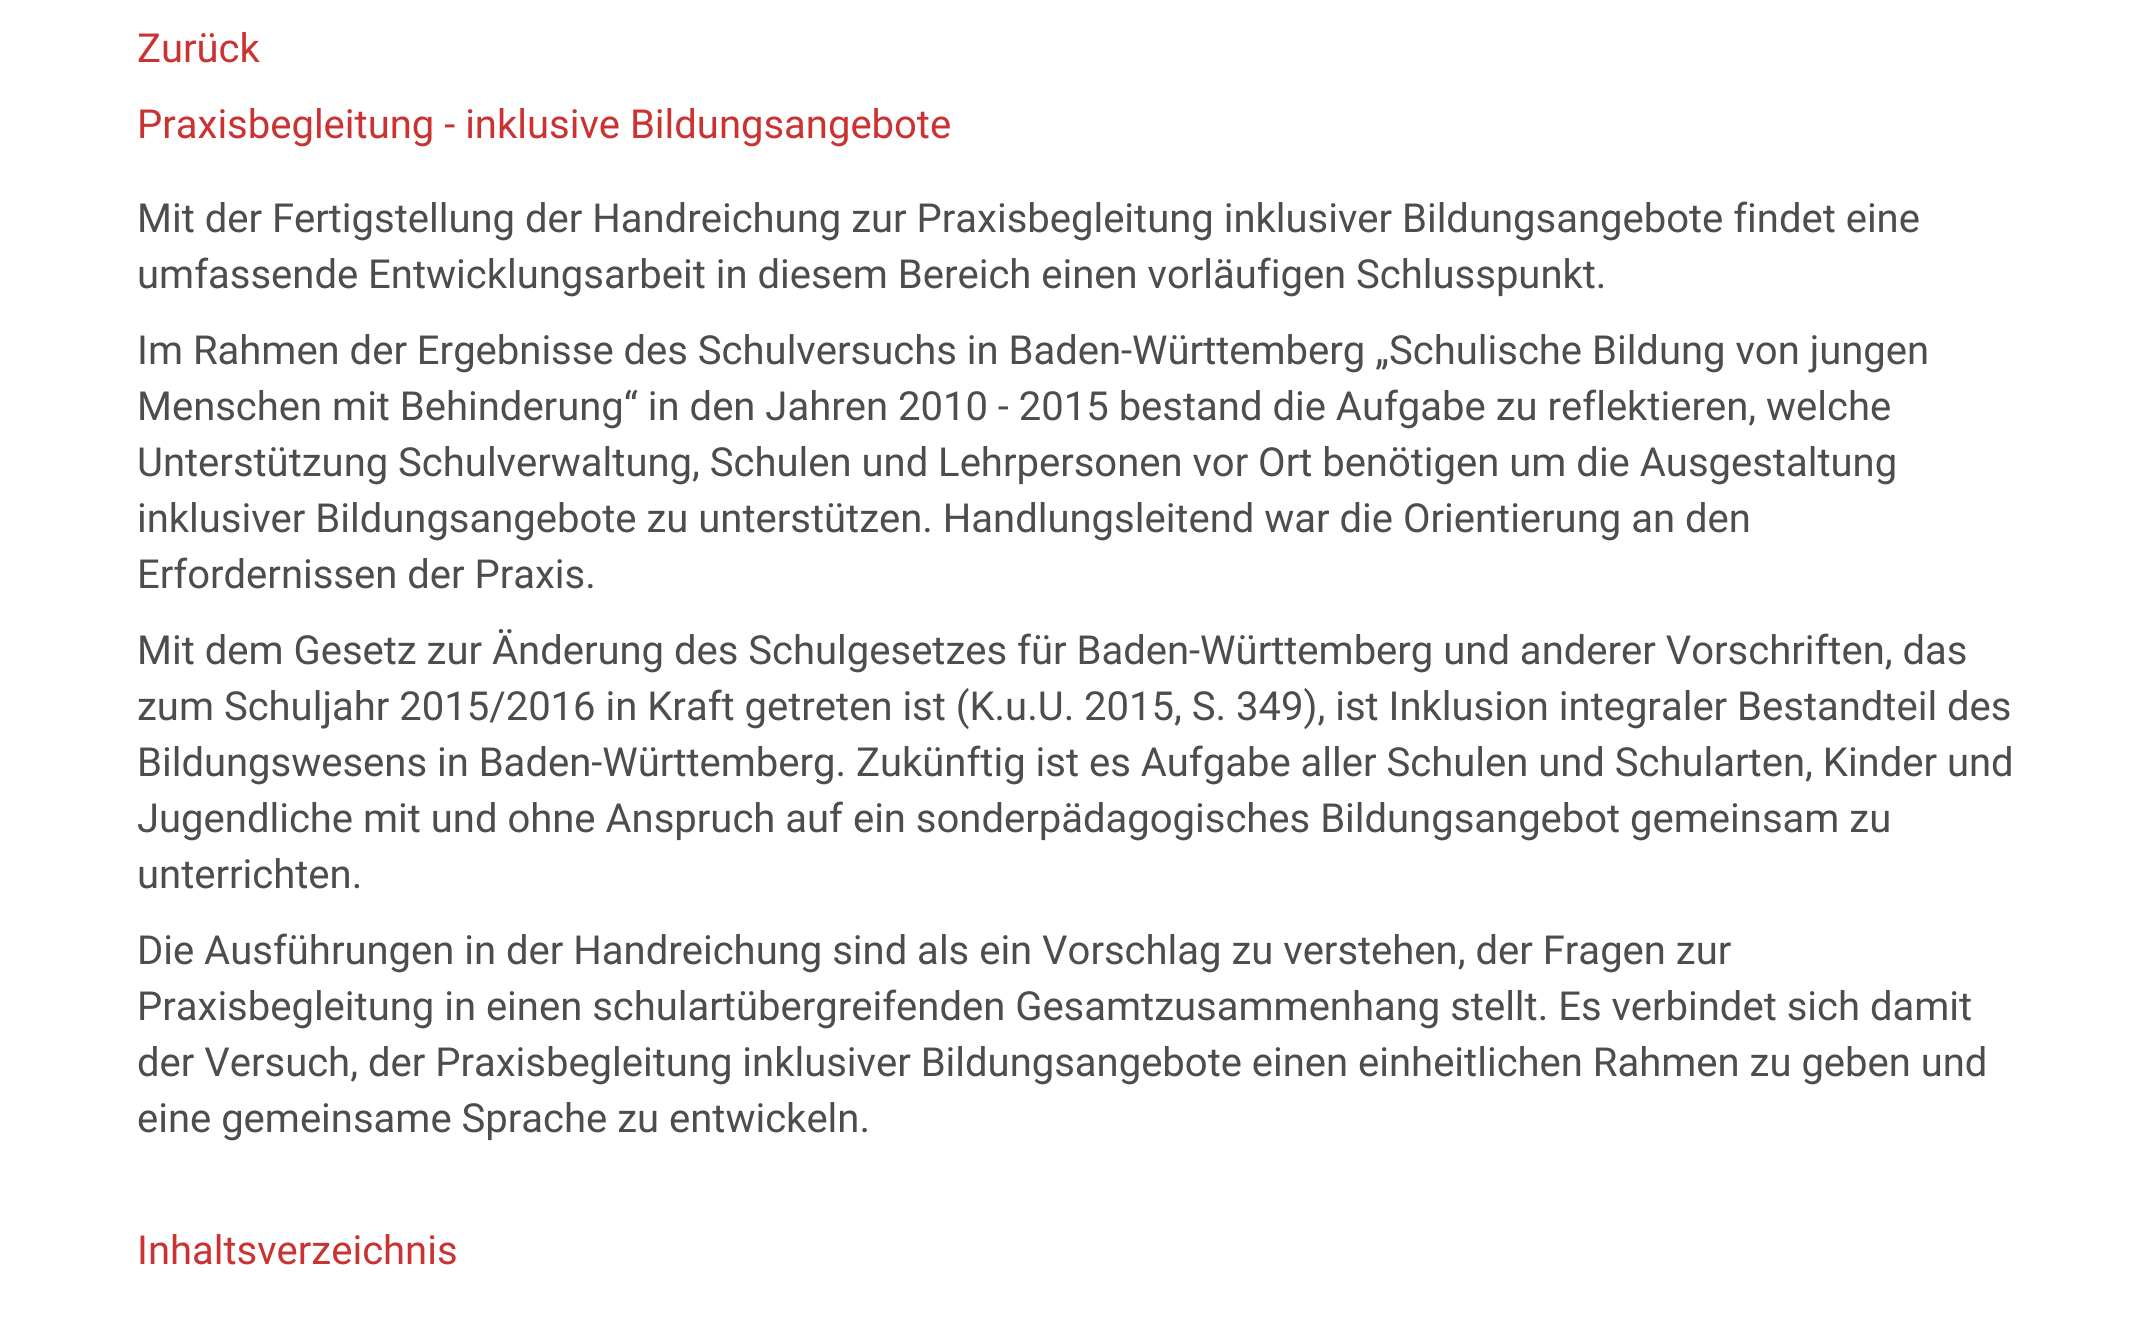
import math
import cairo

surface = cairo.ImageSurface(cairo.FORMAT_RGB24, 2154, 1320)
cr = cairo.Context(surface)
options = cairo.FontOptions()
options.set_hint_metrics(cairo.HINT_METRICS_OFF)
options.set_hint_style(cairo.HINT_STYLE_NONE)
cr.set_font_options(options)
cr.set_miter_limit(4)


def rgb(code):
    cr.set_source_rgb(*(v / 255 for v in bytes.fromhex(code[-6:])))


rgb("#ffffff")
cr.paint()
cr.select_font_face("Roboto")
cr.set_font_size(40)
rgb("#cb3232")
cr.move_to(137, 62)
cr.show_text("Zurück")
cr.move_to(137, 138)
cr.show_text("Praxisbegleitung - inklusive Bildungsangebote")
rgb("#4d4d4d")
for x, y, s in [
    (137, 232, "Mit der Fertigstellung der Handreichung zur Praxisbegleitung inklusiver Bildungsangebote findet eine"),
    (137, 288, "umfassende Entwicklungsarbeit in diesem Bereich einen vorläufigen Schlusspunkt."),
    (137, 364, "Im Rahmen der Ergebnisse des Schulversuchs in Baden-Württemberg „Schulische Bildung von jungen"),
    (137, 420, "Menschen mit Behinderung“ in den Jahren 2010 - 2015 bestand die Aufgabe zu reflektieren, welche"),
    (137, 476, "Unterstützung Schulverwaltung, Schulen und Lehrpersonen vor Ort benötigen um die Ausgestaltung"),
    (137, 532, "inklusiver Bildungsangebote zu unterstützen. Handlungsleitend war die Orientierung an den"),
    (137, 588, "Erfordernissen der Praxis."),
    (137, 664, "Mit dem Gesetz zur Änderung des Schulgesetzes für Baden-Württemberg und anderer Vorschriften, das"),
    (137, 720, "zum Schuljahr 2015/2016 in Kraft getreten ist (K.u.U. 2015, S. 349), ist Inklusion integraler Bestandteil des"),
    (137, 776, "Bildungswesens in Baden-Württemberg. Zukünftig ist es Aufgabe aller Schulen und Schularten, Kinder und"),
    (137, 832, "Jugendliche mit und ohne Anspruch auf ein sonderpädagogisches Bildungsangebot gemeinsam zu"),
    (137, 888, "unterrichten."),
    (137, 964, "Die Ausführungen in der Handreichung sind als ein Vorschlag zu verstehen, der Fragen zur"),
    (137, 1020, "Praxisbegleitung in einen schulartübergreifenden Gesamtzusammenhang stellt. Es verbindet sich damit"),
    (137, 1076, "der Versuch, der Praxisbegleitung inklusiver Bildungsangebote einen einheitlichen Rahmen zu geben und"),
    (137, 1132, "eine gemeinsame Sprache zu entwickeln."),
]:
    cr.move_to(x, y)
    cr.show_text(s)
rgb("#cb3232")
cr.move_to(137, 1264)
cr.show_text("Inhaltsverzeichnis")
surface.write_to_png("page.png")
